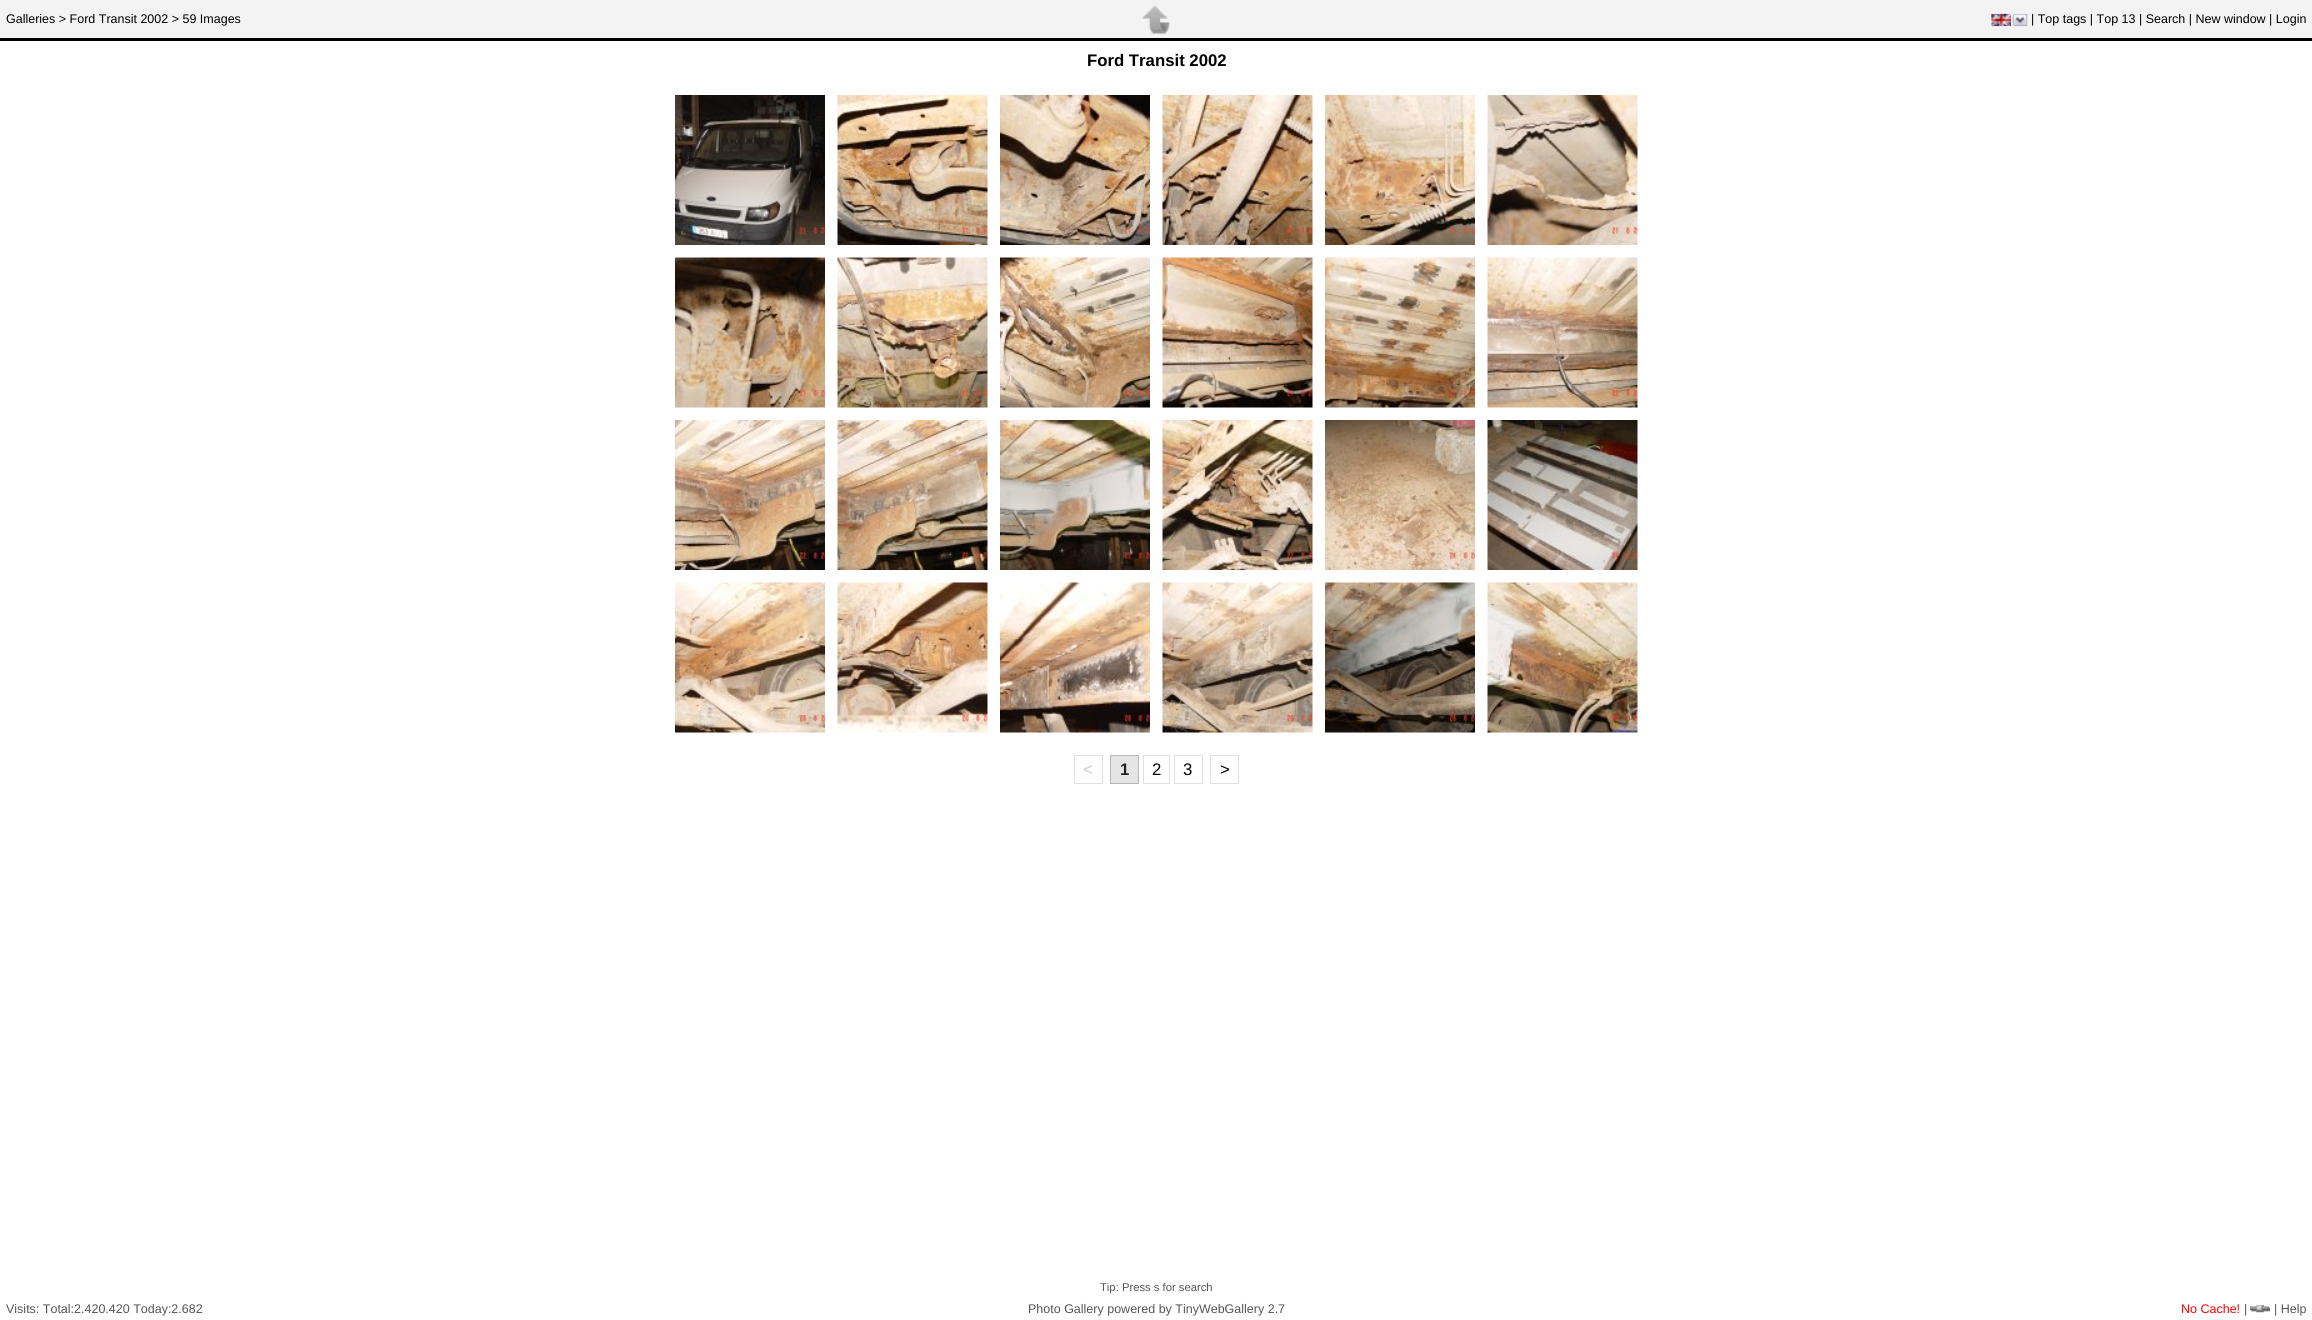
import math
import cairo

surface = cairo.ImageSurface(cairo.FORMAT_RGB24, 2312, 1320)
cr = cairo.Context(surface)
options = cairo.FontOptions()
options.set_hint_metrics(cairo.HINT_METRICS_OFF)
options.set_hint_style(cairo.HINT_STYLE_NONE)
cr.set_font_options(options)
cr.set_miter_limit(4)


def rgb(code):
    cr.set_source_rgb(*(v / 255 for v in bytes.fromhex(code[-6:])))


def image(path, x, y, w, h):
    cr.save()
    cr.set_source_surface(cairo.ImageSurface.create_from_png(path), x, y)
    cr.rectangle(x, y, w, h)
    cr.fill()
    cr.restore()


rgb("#ffffff")
cr.paint()
rgb("#f3f3f3")
cr.rectangle(0, 0, 2312, 38)
cr.fill()
image("img/1.png", 1142, 5, 28, 29)
image("img/2.png", 1991, 13, 21, 14)
image("img/3.png", 2012, 13, 16, 14)
rgb("#000000")
cr.rectangle(0, 38, 2312, 3)
cr.fill()
image("img/4.png", 675, 95, 150, 150)
image("img/5.png", 837, 95, 151, 150)
image("img/6.png", 1000, 95, 150, 150)
image("img/7.png", 1162, 95, 151, 150)
image("img/8.png", 1325, 95, 150, 150)
image("img/9.png", 1487, 95, 151, 150)
image("img/10.png", 675, 257, 150, 151)
image("img/11.png", 837, 257, 151, 151)
image("img/12.png", 1000, 257, 150, 151)
image("img/13.png", 1162, 257, 151, 151)
image("img/14.png", 1325, 257, 150, 151)
image("img/15.png", 1487, 257, 151, 151)
image("img/16.png", 675, 420, 150, 150)
image("img/17.png", 837, 420, 151, 150)
image("img/18.png", 1000, 420, 150, 150)
image("img/19.png", 1162, 420, 151, 150)
image("img/20.png", 1325, 420, 150, 150)
image("img/21.png", 1487, 420, 151, 150)
image("img/22.png", 675, 582, 150, 151)
image("img/23.png", 837, 582, 151, 151)
image("img/24.png", 1000, 582, 150, 151)
image("img/25.png", 1162, 582, 151, 151)
image("img/26.png", 1325, 582, 150, 151)
image("img/27.png", 1487, 582, 151, 151)
cr.rectangle(1074.5, 755.5, 28, 28)
rgb("#e0e0e0")
cr.set_line_width(1)
cr.stroke()
rgb("#e5e5e5")
cr.rectangle(1110.5, 755.5, 28, 28)
cr.fill_preserve()
rgb("#b7b7b7")
cr.stroke()
cr.rectangle(1143.5, 755.5, 26, 28)
rgb("#e0e0e0")
cr.stroke()
cr.rectangle(1174.5, 755.5, 28, 28)
cr.stroke()
cr.rectangle(1210.5, 755.5, 28, 28)
cr.stroke()
image("img/28.png", 2250, 1304, 20, 9)
cr.select_font_face("Liberation Sans")
cr.set_font_size(12.5)
rgb("#000000")
cr.move_to(6, 23)
cr.show_text("Galleries > Ford Transit 2002 > 59 Images")
cr.move_to(2031, 23)
cr.show_text("| Top tags | Top 13 | Search | New window | Login")
cr.select_font_face("Liberation Sans", cairo.FONT_SLANT_NORMAL, cairo.FONT_WEIGHT_BOLD)
cr.set_font_size(16.75)
cr.move_to(1087, 66)
cr.show_text("Ford Transit 2002")
cr.select_font_face("Liberation Sans")
rgb("#cccccc")
cr.move_to(1083, 775)
cr.show_text("<")
cr.select_font_face("Liberation Sans", cairo.FONT_SLANT_NORMAL, cairo.FONT_WEIGHT_BOLD)
rgb("#222222")
cr.move_to(1120, 775)
cr.show_text("1")
cr.select_font_face("Liberation Sans")
rgb("#000000")
for x, y, s in [
    (1152, 775, "2"),
    (1183, 775, "3"),
    (1220, 775, ">"),
]:
    cr.move_to(x, y)
    cr.show_text(s)
cr.set_font_size(11.25)
rgb("#555555")
cr.move_to(1100, 1291)
cr.show_text("Tip: Press s for search")
cr.set_font_size(12.5)
cr.move_to(6, 1313)
cr.show_text("Visits: Total:2.420.420 Today:2.682")
cr.move_to(1028, 1313)
cr.show_text("Photo Gallery powered by TinyWebGallery 2.7")
rgb("#ff0000")
cr.move_to(2181, 1313)
cr.show_text("No Cache!")
rgb("#555555")
cr.move_to(2244, 1313)
cr.show_text("|")
cr.move_to(2274, 1313)
cr.show_text("| Help")
surface.write_to_png("page.png")
